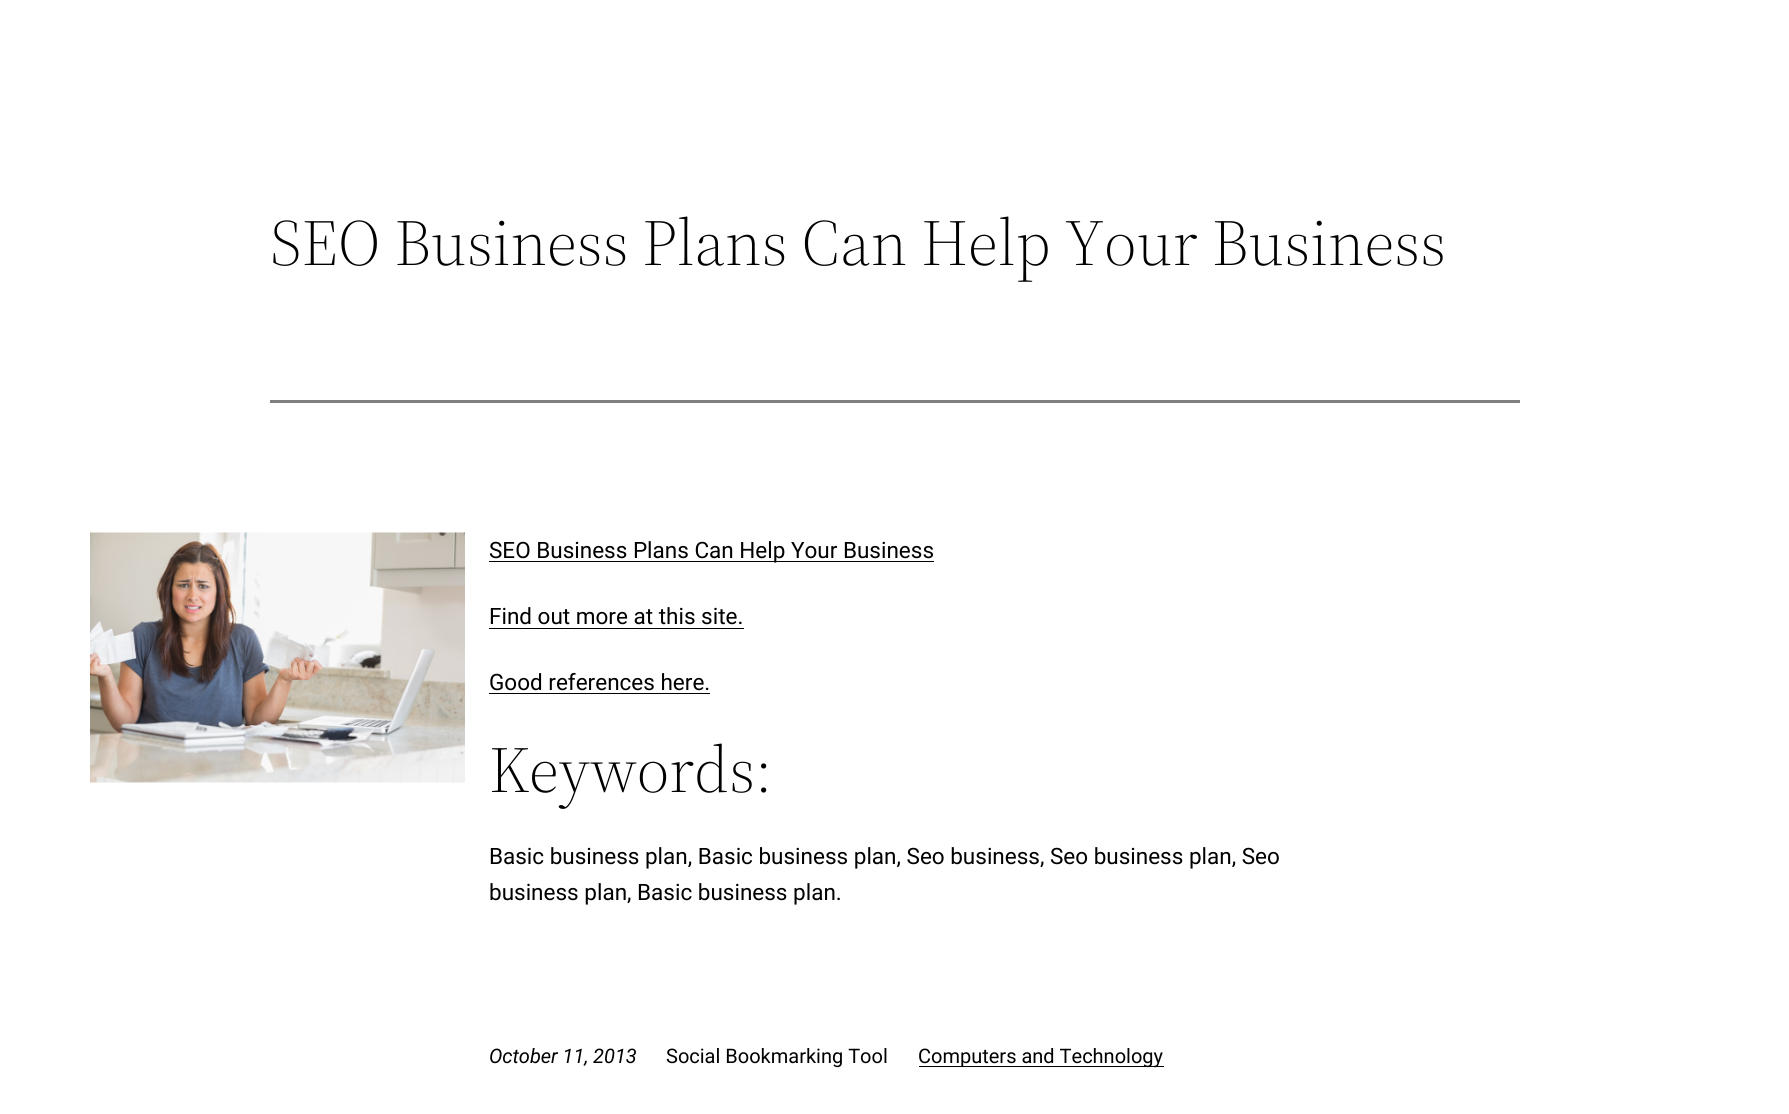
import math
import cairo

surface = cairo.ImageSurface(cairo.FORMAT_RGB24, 1789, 1114)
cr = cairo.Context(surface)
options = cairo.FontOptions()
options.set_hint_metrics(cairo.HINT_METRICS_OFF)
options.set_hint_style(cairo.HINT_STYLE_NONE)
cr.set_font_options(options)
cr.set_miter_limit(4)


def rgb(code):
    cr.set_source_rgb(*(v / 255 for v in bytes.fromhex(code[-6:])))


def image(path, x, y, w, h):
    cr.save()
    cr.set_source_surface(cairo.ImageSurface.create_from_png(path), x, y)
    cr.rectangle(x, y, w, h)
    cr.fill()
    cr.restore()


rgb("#ffffff")
cr.paint()
rgb("#808080")
cr.rectangle(270, 400, 1250, 3)
cr.fill()
image("img/1.png", 90, 532, 375, 251)
for x, y, w, h, color in [
    (489, 561, 445, 1, "#000000"),
    (489, 628, 255, 1, "#000000"),
    (489, 693, 221, 1, "#000000"),
    (919, 1066, 245, 1, "#000000"),
]:
    rgb(color)
    cr.rectangle(x, y, w, h)
    cr.fill()
cr.select_font_face("Source Serif 4 Light")
cr.set_font_size(65)
cr.move_to(270, 265)
cr.show_text("SEO Business Plans Can Help Your Business")
cr.select_font_face("Roboto")
cr.set_font_size(22.5)
for x, y, s in [
    (489, 558, "SEO Business Plans Can Help Your Business"),
    (489, 624, "Find out more at this site."),
    (489, 690, "Good references here."),
]:
    cr.move_to(x, y)
    cr.show_text(s)
cr.select_font_face("Source Serif 4 Light")
cr.set_font_size(65)
cr.move_to(489, 792)
cr.show_text("Keywords:")
cr.select_font_face("Roboto")
cr.set_font_size(22.5)
cr.move_to(489, 864)
cr.show_text("Basic business plan, Basic business plan, Seo business, Seo business plan, Seo")
cr.move_to(489, 900)
cr.show_text("business plan, Basic business plan.")
cr.select_font_face("Roboto", cairo.FONT_SLANT_ITALIC)
cr.set_font_size(20)
cr.move_to(489, 1063)
cr.show_text("October 11, 2013")
cr.select_font_face("Roboto")
cr.move_to(666, 1063)
cr.show_text("Social Bookmarking Tool")
cr.move_to(918, 1063)
cr.show_text("Computers and Technology")
surface.write_to_png("page.png")
